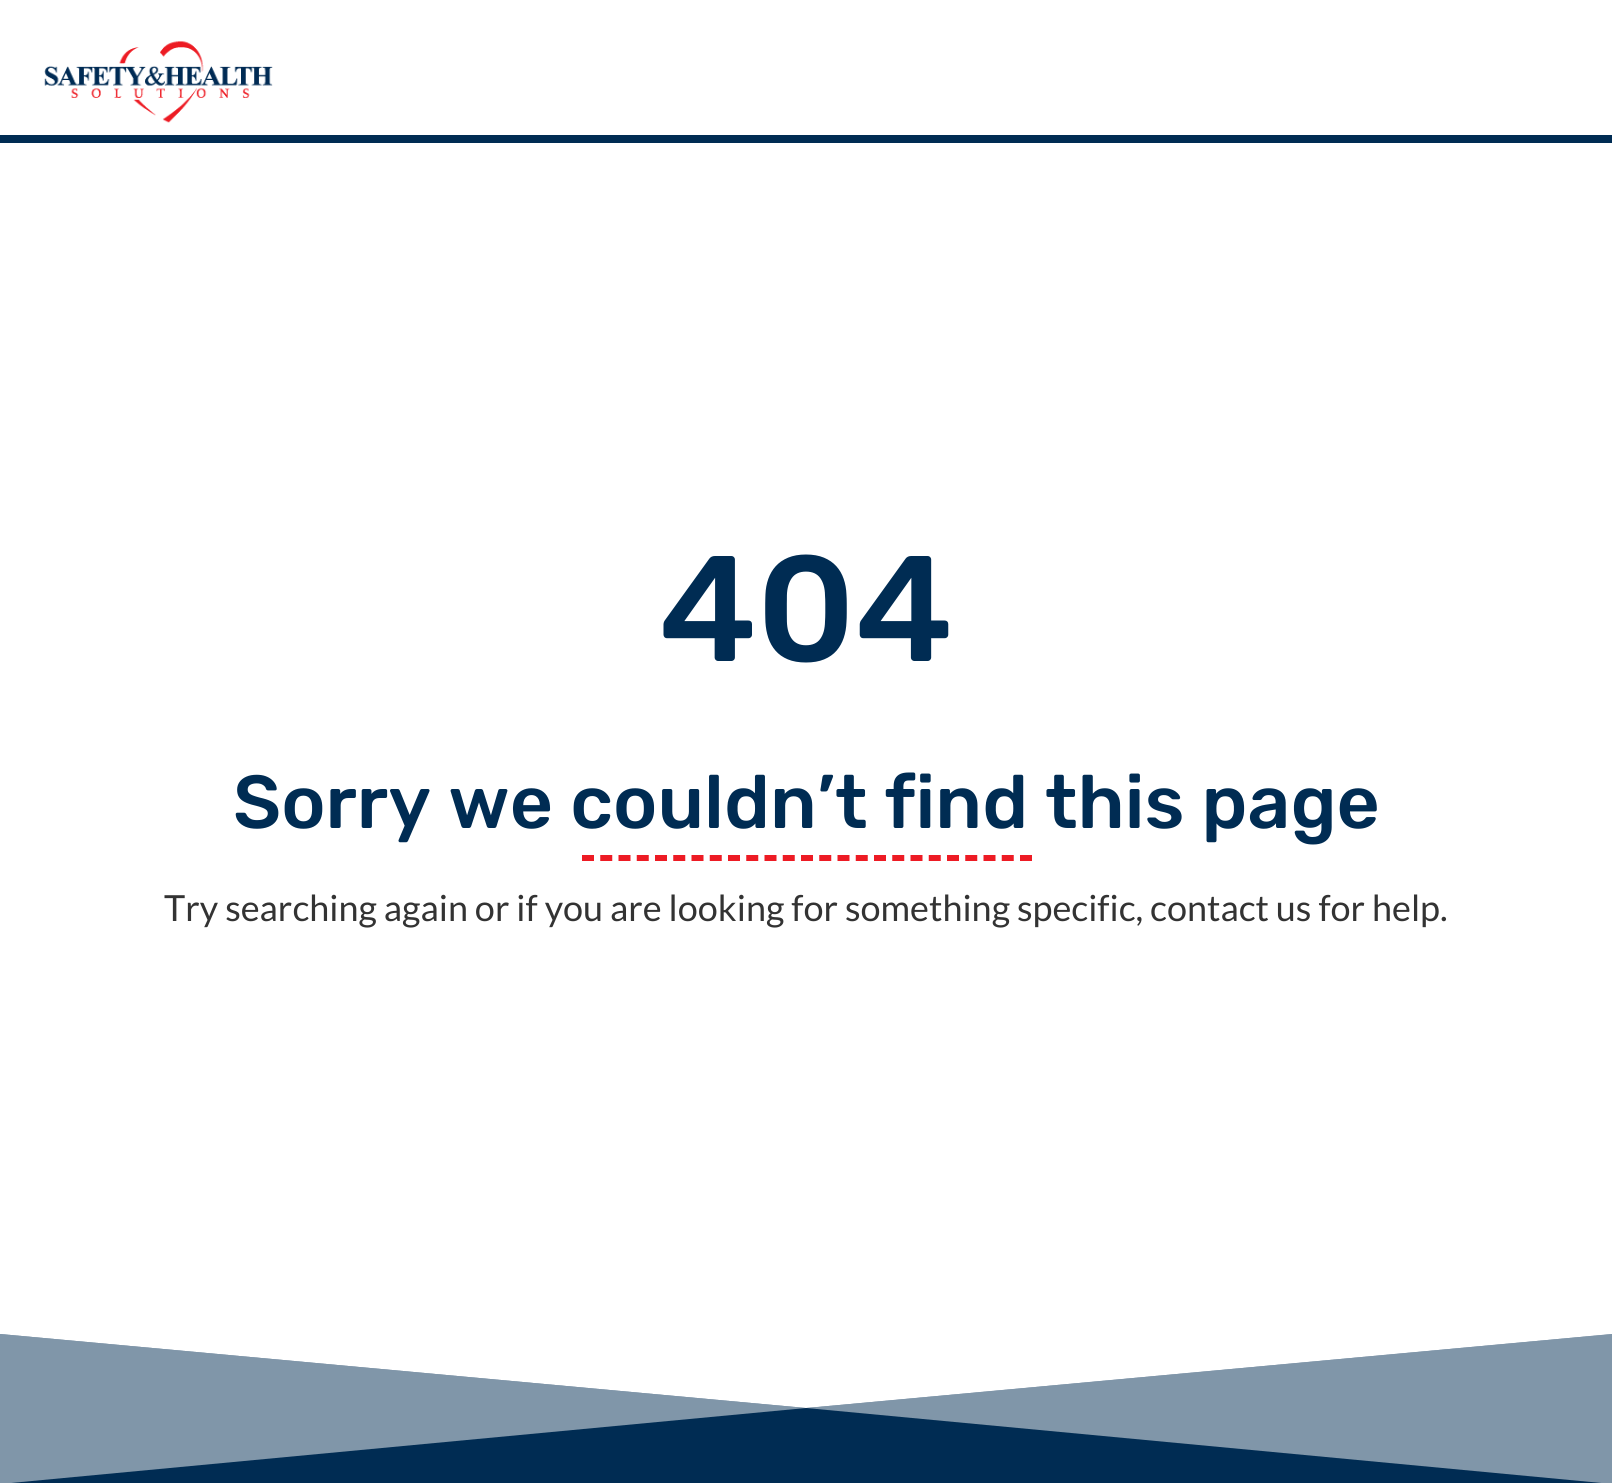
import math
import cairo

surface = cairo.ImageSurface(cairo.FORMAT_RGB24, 1612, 1483)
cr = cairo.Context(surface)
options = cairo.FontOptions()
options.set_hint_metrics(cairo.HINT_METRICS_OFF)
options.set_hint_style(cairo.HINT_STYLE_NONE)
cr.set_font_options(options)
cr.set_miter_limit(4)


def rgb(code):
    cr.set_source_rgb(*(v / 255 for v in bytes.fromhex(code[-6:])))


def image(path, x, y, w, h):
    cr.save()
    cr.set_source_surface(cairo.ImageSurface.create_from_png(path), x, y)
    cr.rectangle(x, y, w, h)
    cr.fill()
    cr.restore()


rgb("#ffffff")
cr.paint()
rgb("#002c53")
cr.rectangle(0, 135, 1612, 8)
cr.fill()
image("img/1.png", 44, 41, 229, 82)
cr.new_path()
cr.move_to(582, 858)
cr.line_to(1032, 858)
rgb("#ed1b24")
cr.set_line_width(6)
cr.set_dash([12, 6.25])
cr.stroke()
rgb("#002c53")
cr.rectangle(0, 1334, 1612, 149)
cr.fill()
rgb("#8096a9")
cr.new_path()
cr.move_to(1612, 1334)
cr.line_to(806, 1408)
cr.line_to(0, 1334)
cr.line_to(0, 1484)
cr.line_to(806, 1408)
cr.line_to(1612, 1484)
cr.close_path()
cr.fill()
rgb("#ffffff")
cr.new_path()
cr.move_to(1612, 1334)
cr.line_to(0, 1334)
cr.line_to(806, 1408)
cr.close_path()
cr.fill()
cr.select_font_face("Rubik Light")
cr.set_font_size(150)
rgb("#002c53")
cr.move_to(659, 661)
cr.show_text("404")
cr.set_font_size(75)
cr.move_to(233, 828)
cr.show_text("Sorry we couldn’t find this page")
cr.select_font_face("Lato")
cr.set_font_size(36)
rgb("#333333")
cr.move_to(164, 921)
cr.show_text("Try searching again or if you are looking for something specific, contact us for help.")
surface.write_to_png("page.png")
